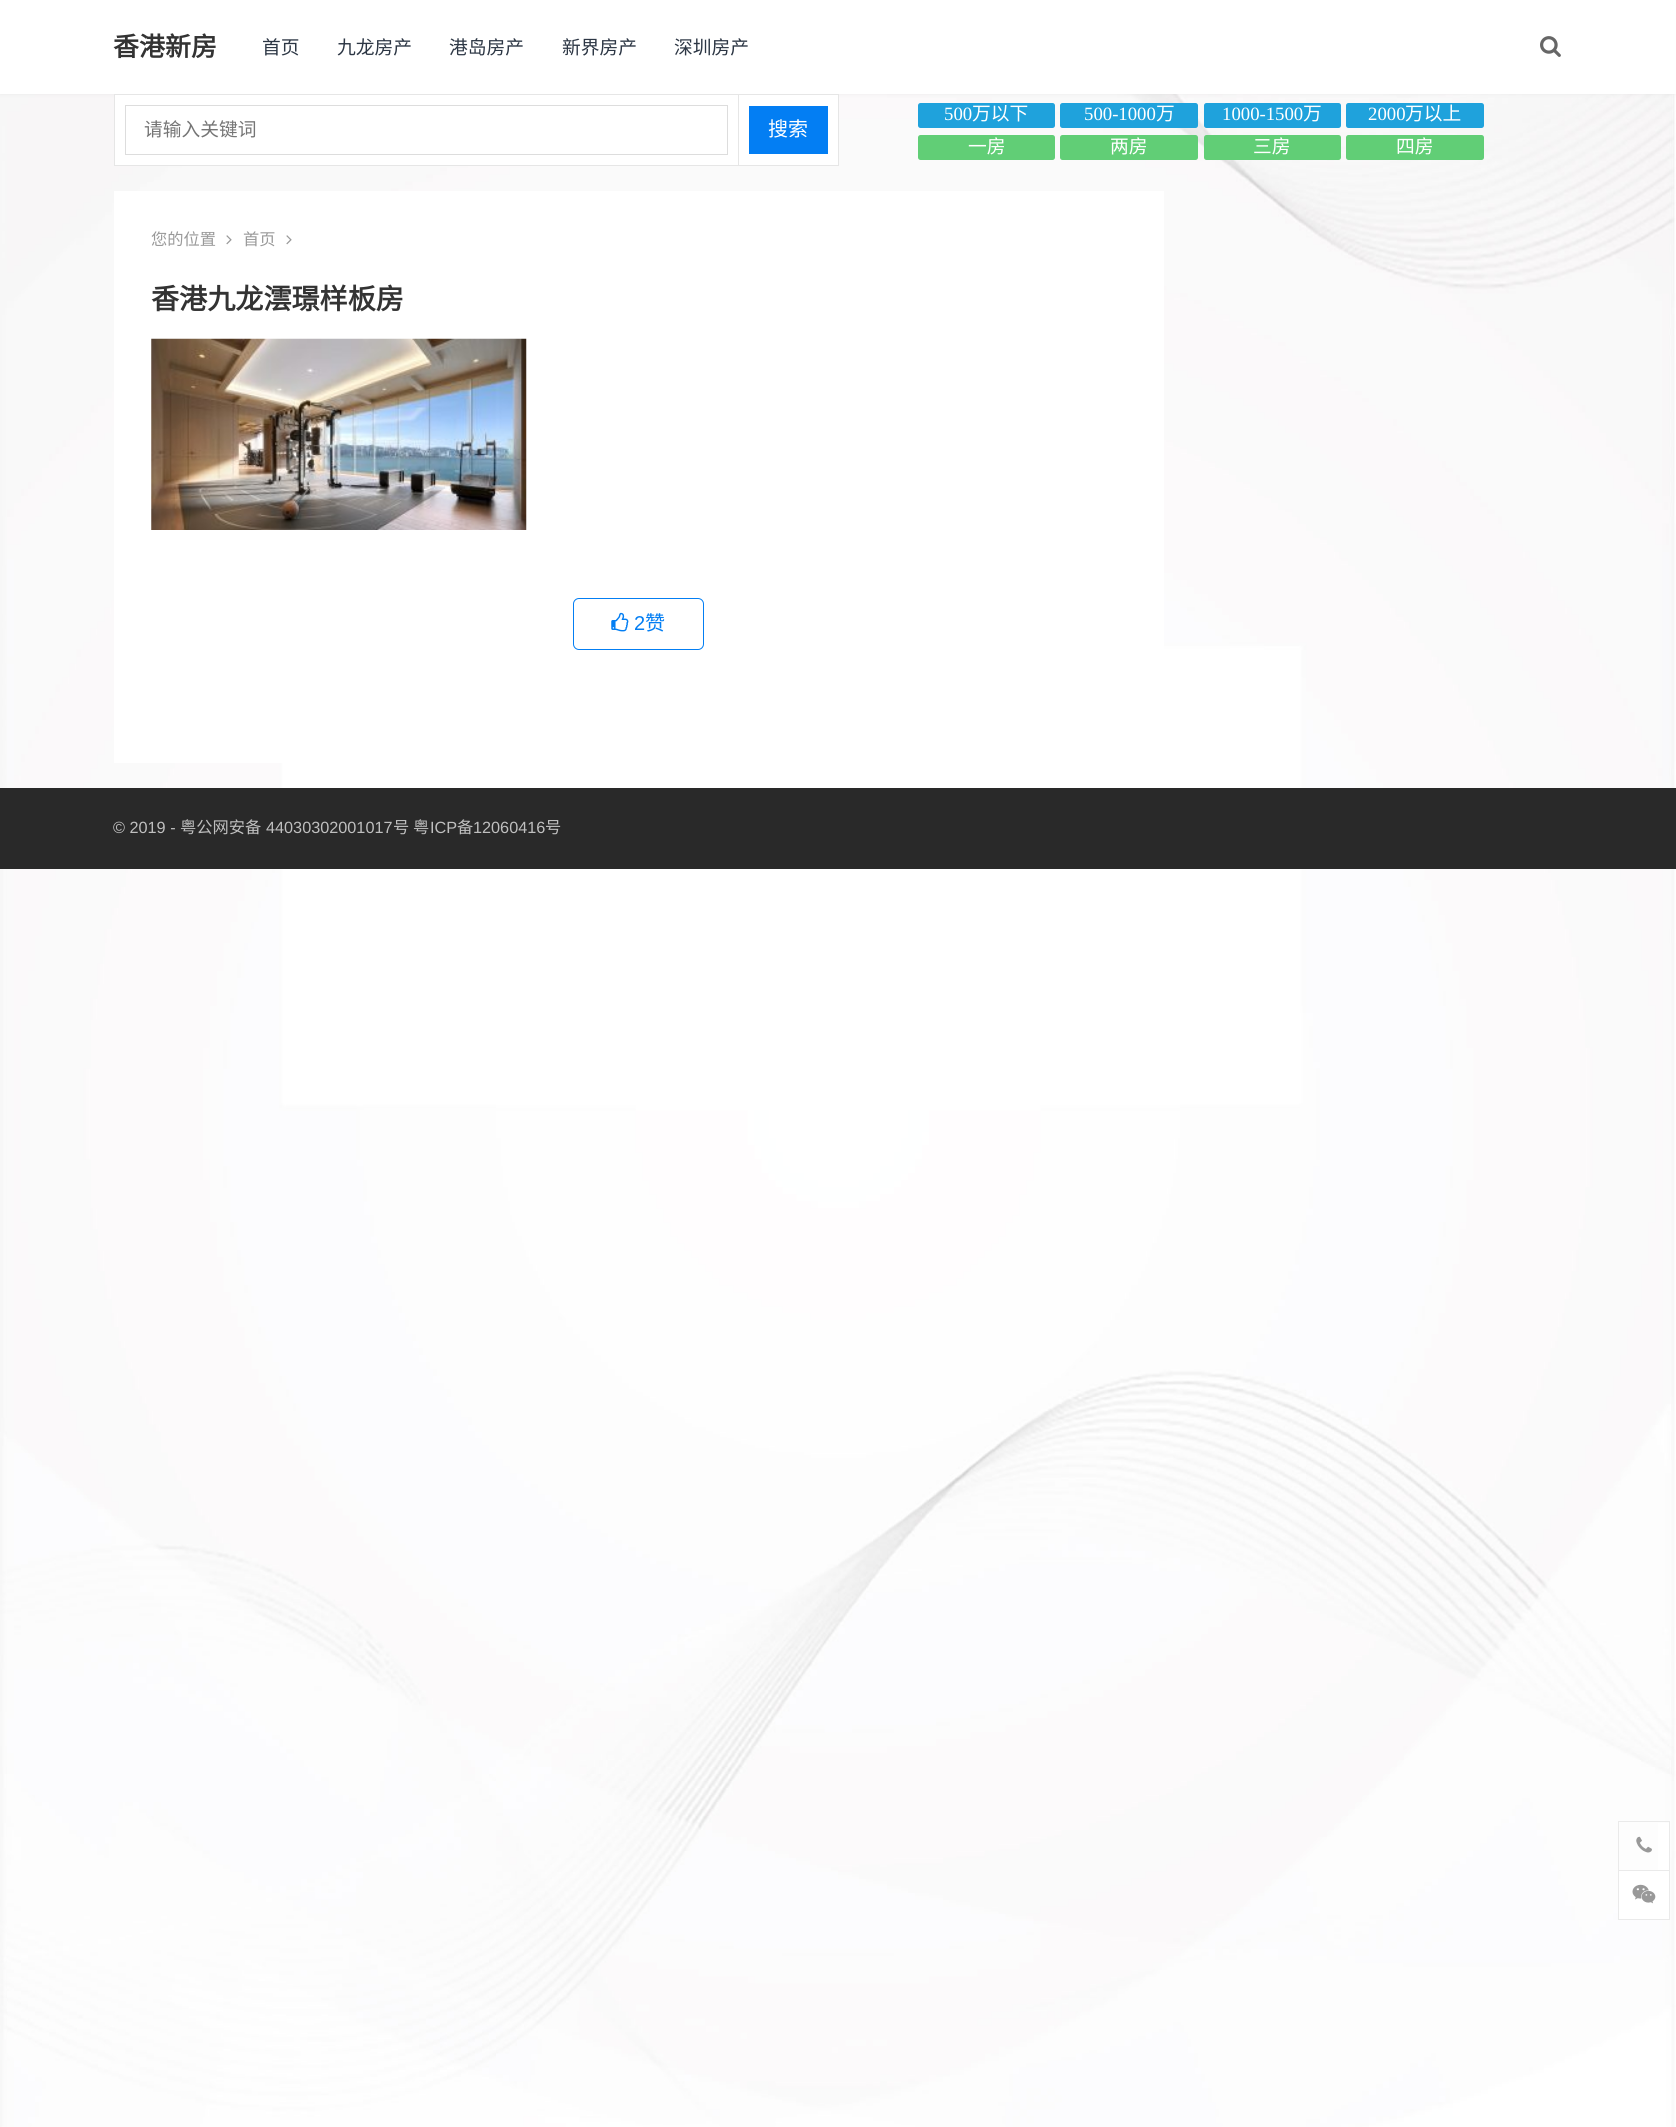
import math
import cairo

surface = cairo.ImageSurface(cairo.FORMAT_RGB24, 1676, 2127)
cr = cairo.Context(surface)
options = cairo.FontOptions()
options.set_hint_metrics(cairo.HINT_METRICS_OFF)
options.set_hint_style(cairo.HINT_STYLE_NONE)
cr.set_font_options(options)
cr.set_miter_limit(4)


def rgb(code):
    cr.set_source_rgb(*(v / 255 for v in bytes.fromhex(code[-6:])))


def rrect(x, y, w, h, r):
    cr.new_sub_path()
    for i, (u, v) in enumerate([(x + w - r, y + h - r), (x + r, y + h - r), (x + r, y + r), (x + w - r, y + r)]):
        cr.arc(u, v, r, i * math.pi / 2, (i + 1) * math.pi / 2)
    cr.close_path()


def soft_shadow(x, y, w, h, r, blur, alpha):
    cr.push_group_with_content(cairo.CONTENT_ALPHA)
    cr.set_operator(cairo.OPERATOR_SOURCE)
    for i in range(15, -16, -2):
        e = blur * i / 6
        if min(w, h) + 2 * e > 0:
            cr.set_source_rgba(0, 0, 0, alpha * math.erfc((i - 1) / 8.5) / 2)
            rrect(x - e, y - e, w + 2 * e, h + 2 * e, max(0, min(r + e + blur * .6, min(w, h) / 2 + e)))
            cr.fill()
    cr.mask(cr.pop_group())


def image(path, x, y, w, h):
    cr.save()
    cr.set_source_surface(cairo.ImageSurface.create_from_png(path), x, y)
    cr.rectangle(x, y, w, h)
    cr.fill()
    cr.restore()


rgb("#ffffff")
cr.paint()
image("img/1.png", 0, 94, 1676, 2033)
rgb("#000000")
soft_shadow(0, 0, 1676, 94, 0, 2.5, 0.06)
rgb("#ffffff")
cr.rectangle(0, 0, 1676, 94)
cr.fill()
image("img/2.png", 1540, 36, 21, 21)
for x, y, w, h, color in [
    (115, 95, 623, 70, "#ffffff"),
    (738, 94, 101, 1, "#e6e6e6"),
    (838, 94, 1, 72, "#e6e6e6"),
    (738, 165, 101, 1, "#e6e6e6"),
    (738, 94, 1, 72, "#e6e6e6"),
    (114, 94, 625, 1, "#e6e6e6"),
    (114, 165, 625, 1, "#e6e6e6"),
    (114, 94, 1, 72, "#e6e6e6"),
]:
    rgb(color)
    cr.rectangle(x, y, w, h)
    cr.fill()
cr.rectangle(125.5, 105.5, 602, 49)
rgb("#dddddd")
cr.set_line_width(1)
cr.stroke()
rgb("#ffffff")
cr.rectangle(739, 95, 99, 70)
cr.fill()
rgb("#037ef3")
cr.rectangle(749, 106, 79, 48)
cr.fill()
rgb("#1fa2dc")
rrect(918, 103, 137, 25, 2.5)
cr.fill()
rrect(1060, 103, 138, 25, 2.5)
cr.fill()
rrect(1204, 103, 137, 25, 2.5)
cr.fill()
rrect(1346, 103, 138, 25, 2.5)
cr.fill()
rgb("#61ce76")
rrect(918, 135, 137, 25, 2.5)
cr.fill()
rrect(1060, 135, 138, 25, 2.5)
cr.fill()
rrect(1204, 135, 137, 25, 2.5)
cr.fill()
rrect(1346, 135, 138, 25, 2.5)
cr.fill()
rgb("#ffffff")
cr.rectangle(114, 191, 1050, 572)
cr.fill()
image("img/3.png", 226, 235, 6, 10)
image("img/3.png", 286, 235, 6, 10)
image("img/4.png", 151, 338, 376, 192)
rrect(573.5, 598.5, 130, 51, 5.5)
rgb("#037ef3")
cr.stroke()
image("img/5.png", 611, 612, 18, 20)
rgb("#292929")
cr.rectangle(0, 788, 1676, 81)
cr.fill()
cr.rectangle(1618.5, 1821.5, 51, 49)
rgb("#eaeaea")
cr.stroke()
rgb("#ffffff")
cr.rectangle(1658, 1823, 11, 47)
cr.fill()
image("img/6.png", 1636, 1836, 16, 17)
cr.rectangle(1618.5, 1870.5, 51, 49)
rgb("#eaeaea")
cr.stroke()
rgb("#ffffff")
cr.rectangle(1619, 1871, 50, 48)
cr.fill()
image("img/7.png", 1632, 1884, 24, 20)
cr.select_font_face("Noto Sans CJK SC", cairo.FONT_SLANT_NORMAL, cairo.FONT_WEIGHT_BOLD)
cr.set_font_size(26)
rgb("#333333")
cr.move_to(113, 56)
cr.show_text("香港新房")
cr.select_font_face("Noto Sans CJK SC")
cr.set_font_size(18.75)
rgb("#2c3644")
for x, y, s in [
    (262, 54, "首页"),
    (337, 54, "九龙房产"),
    (449, 54, "港岛房产"),
    (562, 54, "新界房产"),
    (674, 54, "深圳房产"),
]:
    cr.move_to(x, y)
    cr.show_text(s)
rgb("#757575")
cr.move_to(144, 136)
cr.show_text("请输入关键词")
cr.set_font_size(20)
rgb("#ffffff")
cr.move_to(768, 136)
cr.show_text("搜索")
cr.select_font_face("Liberation Serif")
cr.set_font_size(18.75)
cr.move_to(944, 120)
cr.show_text("500")
cr.select_font_face("Noto Sans CJK SC")
cr.move_to(972, 120)
cr.show_text("万以下")
cr.select_font_face("Liberation Serif")
cr.move_to(1084, 120)
cr.show_text("500-1000")
cr.select_font_face("Noto Sans CJK SC")
cr.move_to(1156, 120)
cr.show_text("万")
cr.select_font_face("Liberation Serif")
cr.move_to(1222, 120)
cr.show_text("1000-1500")
cr.select_font_face("Noto Sans CJK SC")
cr.move_to(1303, 120)
cr.show_text("万")
cr.select_font_face("Liberation Serif")
cr.move_to(1368, 120)
cr.show_text("2000")
cr.select_font_face("Noto Sans CJK SC")
for x, y, s in [
    (1405, 120, "万以上"),
    (968, 153, "一房"),
    (1110, 153, "两房"),
    (1253, 153, "三房"),
    (1396, 153, "四房"),
]:
    cr.move_to(x, y)
    cr.show_text(s)
cr.set_font_size(16.25)
rgb("#999999")
cr.move_to(151, 245)
cr.show_text("您的位置")
cr.move_to(243, 245)
cr.show_text("首页")
cr.select_font_face("Noto Sans CJK SC", cairo.FONT_SLANT_NORMAL, cairo.FONT_WEIGHT_BOLD)
cr.set_font_size(28.1)
rgb("#333333")
cr.move_to(151, 309)
cr.show_text("香港九龙澐璟样板房")
cr.select_font_face("Liberation Sans")
cr.set_font_size(20)
rgb("#037ef3")
cr.move_to(634, 630)
cr.show_text("2")
cr.select_font_face("Noto Sans CJK SC")
cr.move_to(645, 630)
cr.show_text("赞")
cr.select_font_face("Liberation Sans")
cr.set_font_size(16.25)
rgb("#bfbfbf")
cr.move_to(113, 833)
cr.show_text("© 2019 -")
cr.select_font_face("Noto Sans CJK SC")
cr.move_to(180, 833)
cr.show_text("粤公网安备")
cr.select_font_face("Liberation Sans")
cr.move_to(266, 833)
cr.show_text("44030302001017")
cr.select_font_face("Noto Sans CJK SC")
cr.move_to(393, 833)
cr.show_text("号")
cr.move_to(413, 833)
cr.show_text("粤")
cr.select_font_face("Liberation Sans")
cr.move_to(430, 833)
cr.show_text("ICP")
cr.select_font_face("Noto Sans CJK SC")
cr.move_to(457, 833)
cr.show_text("备")
cr.select_font_face("Liberation Sans")
cr.move_to(473, 833)
cr.show_text("12060416")
cr.select_font_face("Noto Sans CJK SC")
cr.move_to(545, 833)
cr.show_text("号")
surface.write_to_png("page.png")
